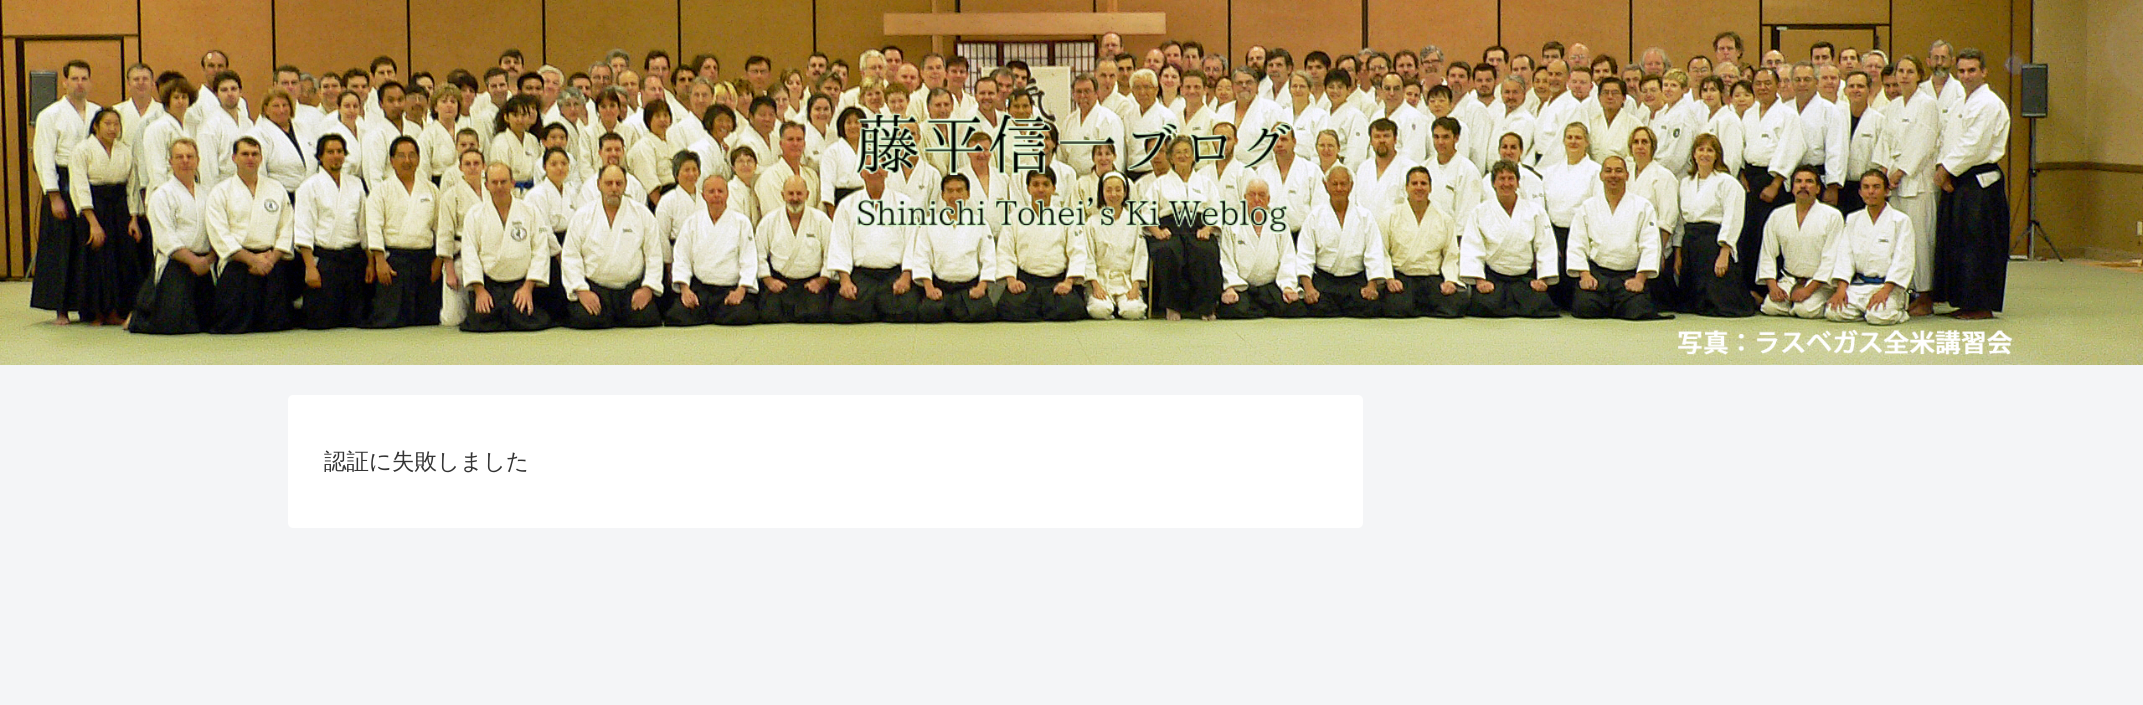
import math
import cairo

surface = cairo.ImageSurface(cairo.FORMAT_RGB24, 2143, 705)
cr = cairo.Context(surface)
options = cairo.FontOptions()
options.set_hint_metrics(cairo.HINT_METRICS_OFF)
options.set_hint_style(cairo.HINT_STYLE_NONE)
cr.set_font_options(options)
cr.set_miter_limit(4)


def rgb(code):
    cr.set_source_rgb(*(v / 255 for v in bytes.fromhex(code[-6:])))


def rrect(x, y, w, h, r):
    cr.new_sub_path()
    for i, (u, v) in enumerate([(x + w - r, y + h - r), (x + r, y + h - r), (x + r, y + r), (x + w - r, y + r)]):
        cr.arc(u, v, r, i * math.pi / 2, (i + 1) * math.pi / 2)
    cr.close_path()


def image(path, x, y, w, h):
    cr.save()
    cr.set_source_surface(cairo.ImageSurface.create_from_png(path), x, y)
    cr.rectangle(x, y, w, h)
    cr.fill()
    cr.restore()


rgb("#f4f5f7")
cr.paint()
image("img/1.png", 0, 0, 2143, 365)
image("img/2.png", 856, 112, 437, 122)
rgb("#ffffff")
rrect(288, 395, 1075, 133, 5)
cr.fill()
cr.select_font_face("WenQuanYi Zen Hei Medium")
cr.set_font_size(22.5)
rgb("#333333")
cr.move_to(324, 469)
cr.show_text("認証に失敗しました")
surface.write_to_png("page.png")
